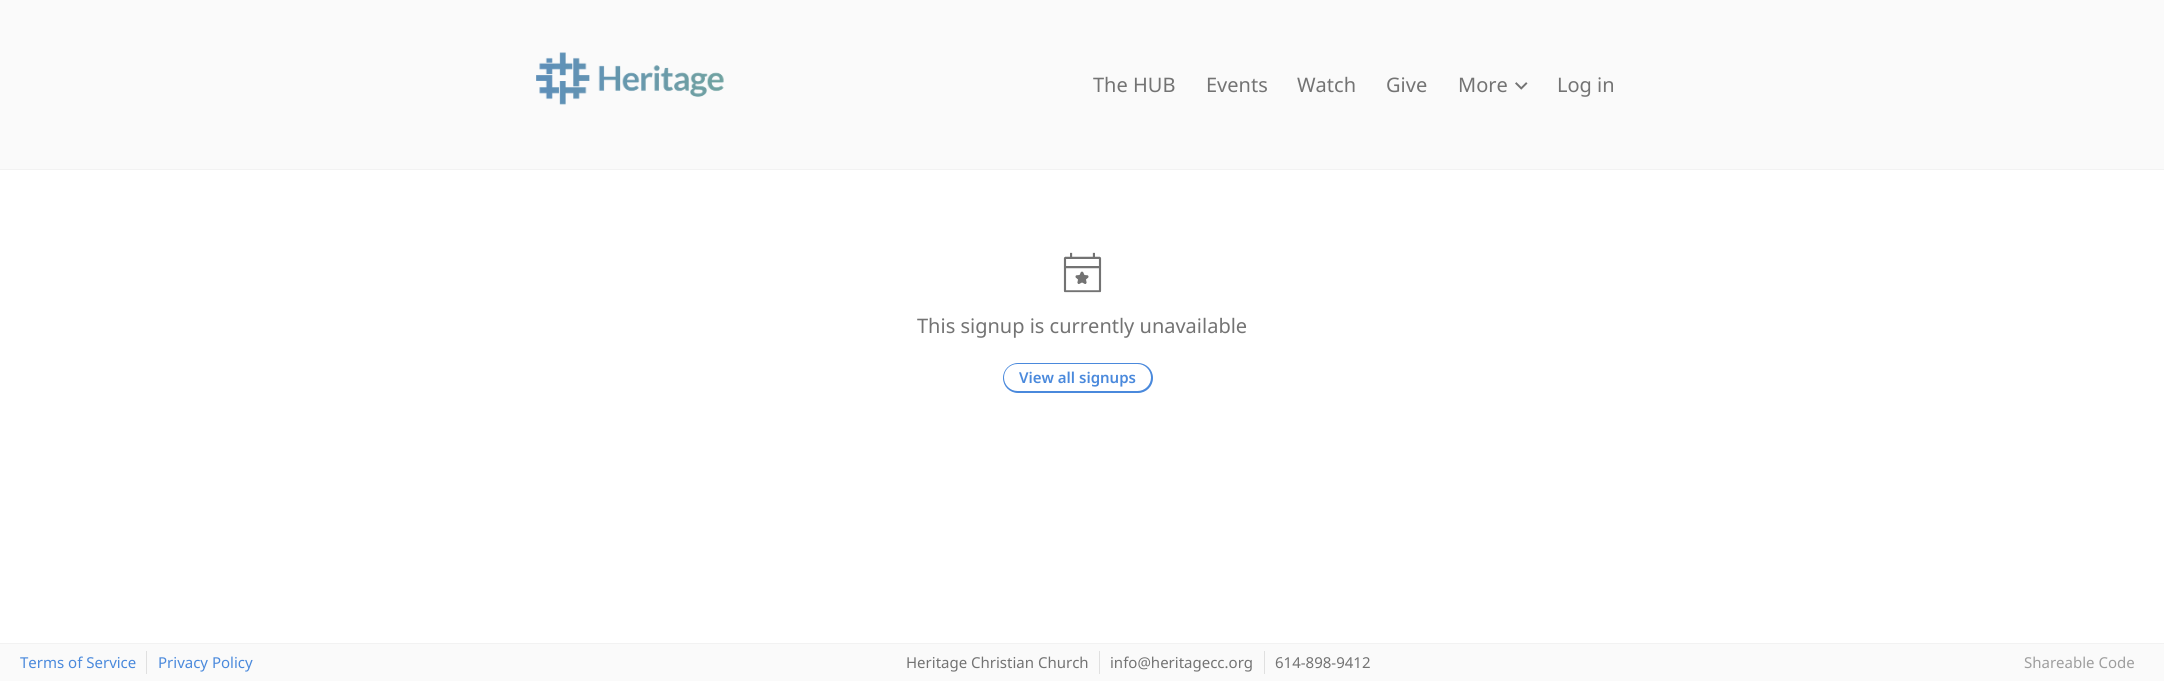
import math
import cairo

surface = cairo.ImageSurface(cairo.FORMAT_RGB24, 2164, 681)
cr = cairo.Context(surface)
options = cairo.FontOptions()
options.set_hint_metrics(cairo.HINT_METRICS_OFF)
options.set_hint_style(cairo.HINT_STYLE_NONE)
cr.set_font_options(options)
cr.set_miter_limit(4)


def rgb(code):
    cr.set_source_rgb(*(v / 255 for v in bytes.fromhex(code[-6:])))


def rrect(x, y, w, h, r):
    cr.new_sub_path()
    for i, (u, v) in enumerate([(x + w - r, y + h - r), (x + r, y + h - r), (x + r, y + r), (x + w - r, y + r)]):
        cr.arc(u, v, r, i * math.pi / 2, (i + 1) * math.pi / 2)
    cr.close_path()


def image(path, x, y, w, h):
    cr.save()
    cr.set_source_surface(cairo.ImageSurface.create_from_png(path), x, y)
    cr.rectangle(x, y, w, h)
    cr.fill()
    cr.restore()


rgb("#ffffff")
cr.paint()
rgb("#fafafa")
cr.rectangle(0, 0, 2164, 169)
cr.fill()
rgb("#f2f2f2")
cr.rectangle(0, 169, 2164, 1)
cr.fill()
image("img/1.png", 536, 52, 188, 53)
image("img/2.png", 1515, 82, 13, 8)
image("img/3.png", 1063, 252, 39, 41)
rgb("#4a89dc")
rrect(1003, 363, 150, 30, 15)
cr.fill()
rgb("#ffffff")
rrect(1004, 364, 147, 27, 13.5)
cr.fill()
for x, y, w, h, color in [
    (0, 644, 2164, 37, "#fafafa"),
    (0, 643, 2164, 1, "#f2f2f2"),
    (146, 651, 1, 23, "#e0e0e0"),
    (1099, 651, 1, 23, "#e0e0e0"),
    (1264, 651, 1, 23, "#e0e0e0"),
]:
    rgb(color)
    cr.rectangle(x, y, w, h)
    cr.fill()
cr.select_font_face("Noto Sans")
cr.set_font_size(20)
rgb("#737373")
for x, y, s in [
    (1093, 92, "The HUB"),
    (1206, 92, "Events"),
    (1297, 92, "Watch"),
    (1386, 92, "Give"),
    (1458, 92, "More"),
    (1557, 92, "Log in"),
    (917, 333, "This signup is currently unavailable"),
]:
    cr.move_to(x, y)
    cr.show_text(s)
cr.select_font_face("Noto Sans SemiBold")
cr.set_font_size(15)
rgb("#4a89dc")
cr.move_to(1019, 383)
cr.show_text("View all signups")
cr.select_font_face("Noto Sans")
cr.move_to(20, 668)
cr.show_text("Terms of Service")
cr.move_to(158, 668)
cr.show_text("Privacy Policy")
rgb("#737373")
for x, y, s in [
    (906, 668, "Heritage Christian Church"),
    (1110, 668, "info@heritagecc.org"),
    (1275, 668, "614-898-9412"),
]:
    cr.move_to(x, y)
    cr.show_text(s)
rgb("#9e9e9e")
cr.move_to(2024, 668)
cr.show_text("Shareable Code")
surface.write_to_png("page.png")
